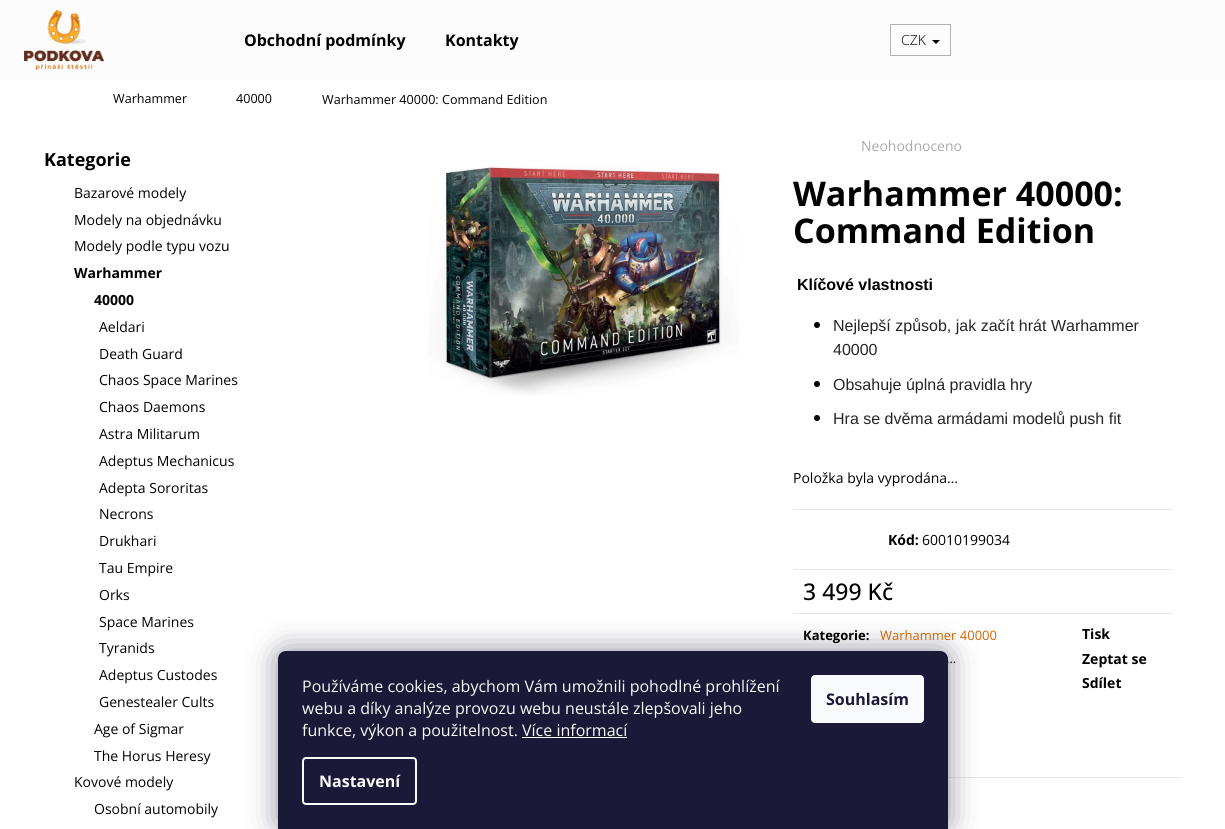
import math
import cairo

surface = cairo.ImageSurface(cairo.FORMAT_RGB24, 1225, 829)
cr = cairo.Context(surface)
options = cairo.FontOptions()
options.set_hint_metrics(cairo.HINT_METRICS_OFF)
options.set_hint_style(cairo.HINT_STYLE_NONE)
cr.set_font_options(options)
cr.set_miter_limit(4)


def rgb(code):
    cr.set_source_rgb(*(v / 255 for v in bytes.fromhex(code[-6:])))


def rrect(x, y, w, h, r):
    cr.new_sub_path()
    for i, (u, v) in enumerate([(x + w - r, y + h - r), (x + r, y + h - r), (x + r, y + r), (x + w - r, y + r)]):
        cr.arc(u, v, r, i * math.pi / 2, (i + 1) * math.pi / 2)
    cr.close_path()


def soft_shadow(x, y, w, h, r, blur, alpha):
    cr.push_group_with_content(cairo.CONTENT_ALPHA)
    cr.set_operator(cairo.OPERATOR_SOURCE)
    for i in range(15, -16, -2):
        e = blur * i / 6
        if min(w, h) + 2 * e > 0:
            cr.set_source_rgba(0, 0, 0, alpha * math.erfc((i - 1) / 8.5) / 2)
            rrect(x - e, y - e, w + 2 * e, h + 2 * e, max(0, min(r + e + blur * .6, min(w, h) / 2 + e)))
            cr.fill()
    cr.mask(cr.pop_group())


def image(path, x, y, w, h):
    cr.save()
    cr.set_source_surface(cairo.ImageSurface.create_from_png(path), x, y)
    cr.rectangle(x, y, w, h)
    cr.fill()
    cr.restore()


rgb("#ffffff")
cr.paint()
rgb("#fcfcfc")
cr.rectangle(0, 0, 1225, 80)
cr.fill()
image("img/1.png", 24, 10, 80, 60)
cr.rectangle(890.5, 24.5, 60, 31)
rgb("#b0b0b0")
cr.set_line_width(1)
cr.stroke()
rgb("#000000")
cr.new_path()
cr.move_to(932, 40)
cr.line_to(940, 40)
cr.line_to(936, 44)
cr.close_path()
cr.fill()
image("img/2.png", 427, 165, 313, 231)
cr.arc(817, 325, 3, 0, 2 * math.pi)
cr.fill()
cr.arc(817, 384, 3, 0, 2 * math.pi)
cr.fill()
cr.arc(817, 418, 3, 0, 2 * math.pi)
cr.fill()
for x, y, w, h, color in [
    (793, 509, 379, 1, "#e7e7e7"),
    (793, 569, 379, 1, "#e7e7e7"),
    (793, 613, 379, 1, "#e7e7e7"),
    (948, 777, 234, 1, "#e7e7e7"),
]:
    rgb(color)
    cr.rectangle(x, y, w, h)
    cr.fill()
rgb("#1b1939")
soft_shadow(278, 651, 670, 178, 8, 15, 0.5)
cr.select_font_face("Open Sans", cairo.FONT_SLANT_NORMAL, cairo.FONT_WEIGHT_BOLD)
cr.set_font_size(16)
rgb("#000000")
cr.move_to(244, 46)
cr.show_text("Obchodní podmínky")
cr.move_to(445, 46)
cr.show_text("Kontakty")
cr.select_font_face("Open Sans Light")
cr.set_font_size(14)
cr.move_to(901, 45)
cr.show_text("CZK")
cr.select_font_face("Open Sans")
cr.set_font_size(12.6)
for x, y, s in [
    (113, 103, "Warhammer"),
    (236, 103, "40000"),
    (322, 104, "Warhammer 40000: Command Edition"),
]:
    cr.move_to(x, y)
    cr.show_text(s)
cr.select_font_face("Open Sans", cairo.FONT_SLANT_NORMAL, cairo.FONT_WEIGHT_BOLD)
cr.set_font_size(18)
cr.move_to(44, 166)
cr.show_text("Kategorie")
cr.select_font_face("Open Sans")
cr.set_font_size(14)
for x, y, s in [
    (74, 198, "Bazarové modely"),
    (74, 225, "Modely na objednávku"),
    (74, 251, "Modely podle typu vozu"),
]:
    cr.move_to(x, y)
    cr.show_text(s)
cr.select_font_face("Open Sans", cairo.FONT_SLANT_NORMAL, cairo.FONT_WEIGHT_BOLD)
cr.move_to(74, 278)
cr.show_text("Warhammer")
cr.move_to(94, 305)
cr.show_text("40000")
cr.select_font_face("Open Sans")
for x, y, s in [
    (99, 332, "Aeldari"),
    (99, 359, "Death Guard"),
    (99, 385, "Chaos Space Marines"),
    (99, 412, "Chaos Daemons"),
    (99, 439, "Astra Militarum"),
    (99, 466, "Adeptus Mechanicus"),
    (99, 493, "Adepta Sororitas"),
    (99, 519, "Necrons"),
    (99, 546, "Drukhari"),
    (99, 573, "Tau Empire"),
    (99, 600, "Orks"),
    (99, 627, "Space Marines"),
    (99, 653, "Tyranids"),
    (99, 680, "Adeptus Custodes"),
    (99, 707, "Genestealer Cults"),
    (94, 734, "Age of Sigmar"),
    (94, 761, "The Horus Heresy"),
    (74, 787, "Kovové modely"),
    (94, 814, "Osobní automobily"),
]:
    cr.move_to(x, y)
    cr.show_text(s)
rgb("#aaaaaa")
cr.move_to(861, 151)
cr.show_text("Neohodnoceno")
cr.select_font_face("Open Sans", cairo.FONT_SLANT_NORMAL, cairo.FONT_WEIGHT_BOLD)
cr.set_font_size(34)
rgb("#000000")
cr.move_to(793, 206)
cr.show_text("Warhammer 40000:")
cr.move_to(793, 243)
cr.show_text("Command Edition")
cr.select_font_face("Liberation Sans", cairo.FONT_SLANT_NORMAL, cairo.FONT_WEIGHT_BOLD)
cr.set_font_size(16)
cr.move_to(797, 290)
cr.show_text("Klíčové vlastnosti")
cr.select_font_face("Liberation Sans")
rgb("#252525")
for x, y, s in [
    (833, 331, "Nejlepší způsob, jak začít hrát Warhammer"),
    (833, 355, "40000"),
    (833, 390, "Obsahuje úplná pravidla hry"),
    (833, 424, "Hra se dvěma armádami modelů push fit"),
]:
    cr.move_to(x, y)
    cr.show_text(s)
cr.select_font_face("Open Sans")
cr.set_font_size(14)
rgb("#000000")
cr.move_to(793, 483)
cr.show_text("Položka byla vyprodána…")
cr.select_font_face("Open Sans", cairo.FONT_SLANT_NORMAL, cairo.FONT_WEIGHT_BOLD)
cr.move_to(888, 545)
cr.show_text("Kód:")
cr.select_font_face("Open Sans")
cr.move_to(922, 545)
cr.show_text("60010199034")
cr.select_font_face("Open Sans Medium")
cr.set_font_size(23)
cr.move_to(803, 600)
cr.show_text("3 499 Kč")
cr.select_font_face("Open Sans", cairo.FONT_SLANT_NORMAL, cairo.FONT_WEIGHT_BOLD)
cr.set_font_size(13)
cr.move_to(803, 640)
cr.show_text("Kategorie:")
cr.select_font_face("Open Sans")
rgb("#ce6301")
cr.move_to(880, 640)
cr.show_text("Warhammer 40000")
rgb("#000000")
cr.move_to(946, 663)
cr.show_text("…")
cr.select_font_face("Open Sans", cairo.FONT_SLANT_NORMAL, cairo.FONT_WEIGHT_BOLD)
cr.set_font_size(14)
for x, y, s in [
    (1082, 639, "Tisk"),
    (1082, 664, "Zeptat se"),
    (1082, 688, "Sdílet"),
]:
    cr.move_to(x, y)
    cr.show_text(s)
rgb("#1a1937")
cr.new_path()
cr.move_to(286, 651)
cr.line_to(940, 651)
cr.curve_to(944.5, 651, 948, 654.5, 948, 659)
cr.line_to(948, 829)
cr.line_to(278, 829)
cr.line_to(278, 659)
cr.curve_to(278, 654.5, 281.5, 651, 286, 651)
cr.close_path()
cr.fill()
cr.select_font_face("Open Sans")
cr.set_font_size(16)
rgb("#f8fafb")
for x, y, s in [
    (302, 692, "Používáme cookies, abychom Vám umožnili pohodlné prohlížení"),
    (302, 714, "webu a díky analýze provozu webu neustále zlepšovali jeho"),
    (302, 736, "funkce, výkon a použitelnost. Více informací"),
]:
    cr.move_to(x, y)
    cr.show_text(s)
cr.rectangle(522, 737, 105, 1)
cr.fill()
rrect(303, 758, 113, 46, 3)
cr.set_line_width(2)
cr.stroke()
cr.select_font_face("Open Sans", cairo.FONT_SLANT_NORMAL, cairo.FONT_WEIGHT_BOLD)
cr.move_to(319, 787)
cr.show_text("Nastavení")
rrect(811, 675, 113, 48, 4)
cr.fill()
rgb("#1a1937")
cr.move_to(826, 705)
cr.show_text("Souhlasím")
surface.write_to_png("page.png")
